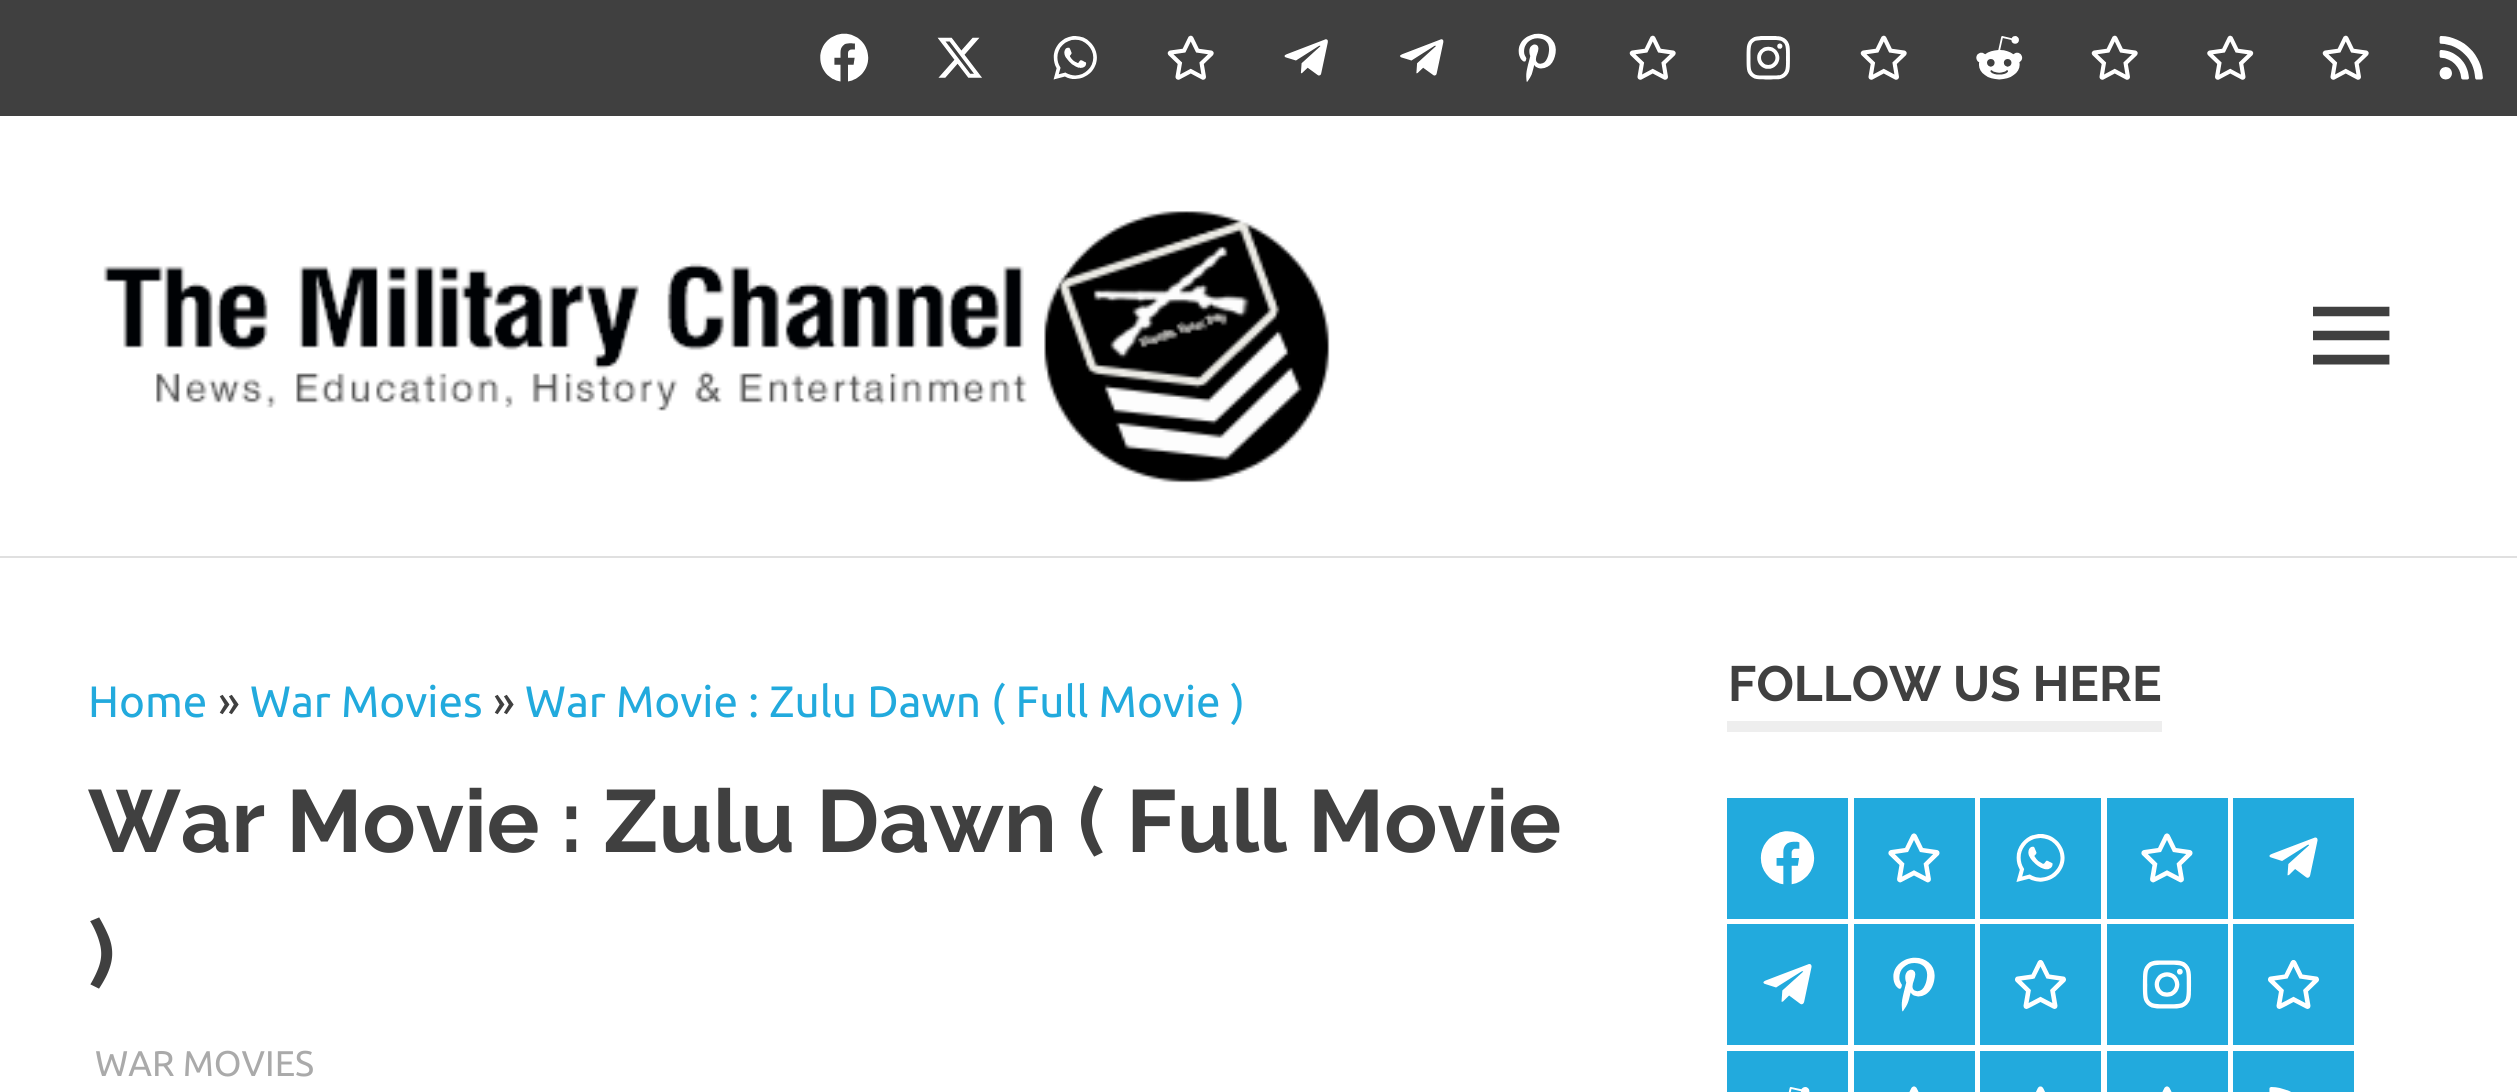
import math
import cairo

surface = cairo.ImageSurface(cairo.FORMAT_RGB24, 2517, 1092)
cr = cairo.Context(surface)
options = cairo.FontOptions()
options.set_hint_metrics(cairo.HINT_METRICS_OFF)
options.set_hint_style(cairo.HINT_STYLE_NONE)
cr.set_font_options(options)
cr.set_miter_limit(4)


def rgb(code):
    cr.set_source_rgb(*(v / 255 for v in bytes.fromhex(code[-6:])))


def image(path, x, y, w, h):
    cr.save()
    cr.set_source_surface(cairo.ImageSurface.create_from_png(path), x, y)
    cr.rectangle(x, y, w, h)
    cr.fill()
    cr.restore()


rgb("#ffffff")
cr.paint()
rgb("#404040")
cr.rectangle(0, 0, 2517, 116)
cr.fill()
image("img/1.png", 820, 33, 49, 49)
image("img/2.png", 937, 37, 45, 41)
image("img/3.png", 1053, 36, 44, 44)
image("img/4.png", 1167, 35, 47, 45)
image("img/5.png", 1284, 39, 44, 37)
image("img/6.png", 1400, 39, 44, 37)
image("img/7.png", 1518, 33, 38, 49)
image("img/4.png", 1629, 35, 47, 45)
image("img/8.png", 1746, 36, 44, 44)
image("img/4.png", 1860, 35, 47, 45)
image("img/9.png", 1976, 36, 47, 44)
image("img/4.png", 2091, 35, 47, 45)
image("img/10.png", 2207, 35, 47, 45)
image("img/4.png", 2322, 35, 47, 45)
image("img/11.png", 2439, 36, 44, 44)
rgb("#e0e0e0")
cr.rectangle(0, 556, 2517, 2)
cr.fill()
image("img/12.png", 103, 211, 1227, 272)
image("img/13.png", 2313, 306, 77, 59)
rgb("#eeeeee")
cr.rectangle(1727, 721, 435, 11)
cr.fill()
rgb("#22aadd")
cr.rectangle(1727, 798, 121, 121)
cr.fill()
image("img/14.png", 1760, 831, 55, 54)
cr.rectangle(1854, 798, 121, 121)
cr.fill()
image("img/15.png", 1888, 833, 52, 50)
cr.rectangle(1980, 798, 121, 121)
cr.fill()
image("img/16.png", 2016, 834, 49, 48)
cr.rectangle(2107, 798, 121, 121)
cr.fill()
image("img/15.png", 2141, 833, 52, 50)
cr.rectangle(2233, 798, 121, 121)
cr.fill()
image("img/17.png", 2269, 837, 49, 41)
cr.rectangle(1727, 924, 121, 121)
cr.fill()
image("img/18.png", 1763, 964, 49, 41)
cr.rectangle(1854, 924, 121, 121)
cr.fill()
image("img/19.png", 1893, 957, 42, 55)
cr.rectangle(1980, 924, 121, 121)
cr.fill()
image("img/20.png", 2015, 960, 51, 49)
cr.rectangle(2107, 924, 121, 121)
cr.fill()
image("img/21.png", 2142, 960, 50, 49)
cr.rectangle(2233, 924, 121, 121)
cr.fill()
image("img/22.png", 2268, 960, 51, 49)
cr.rectangle(1727, 1051, 121, 41)
cr.fill()
image("img/23.png", 1788, 1087, 22, 5)
cr.rectangle(1854, 1051, 121, 41)
cr.fill()
image("img/24.png", 1909, 1086, 10, 6)
cr.rectangle(1980, 1051, 121, 41)
cr.fill()
image("img/25.png", 2036, 1086, 9, 6)
cr.rectangle(2107, 1051, 121, 41)
cr.fill()
image("img/24.png", 2162, 1086, 10, 6)
cr.rectangle(2233, 1051, 121, 41)
cr.fill()
image("img/26.png", 2269, 1087, 22, 5)
cr.select_font_face("Ubuntu")
cr.set_font_size(44)
cr.move_to(88, 717)
cr.show_text("Home")
rgb("#404040")
cr.move_to(218, 717)
cr.show_text("»")
rgb("#22aadd")
cr.move_to(250, 717)
cr.show_text("War Movies")
rgb("#404040")
cr.move_to(493, 717)
cr.show_text("»")
rgb("#22aadd")
cr.move_to(525, 717)
cr.show_text("War Movie : Zulu Dawn ( Full Movie )")
cr.select_font_face("Raleway", cairo.FONT_SLANT_NORMAL, cairo.FONT_WEIGHT_BOLD)
cr.set_font_size(88)
rgb("#404040")
cr.move_to(88, 852)
cr.show_text("War Movie : Zulu Dawn ( Full Movie")
cr.move_to(88, 984)
cr.show_text(")")
cr.select_font_face("Ubuntu")
cr.set_font_size(35.75)
rgb("#aaaaaa")
cr.move_to(95, 1076)
cr.show_text("WAR MOVIES")
cr.select_font_face("Raleway", cairo.FONT_SLANT_NORMAL, cairo.FONT_WEIGHT_BOLD)
cr.set_font_size(49.5)
rgb("#404040")
cr.move_to(1728, 701)
cr.show_text("FOLLOW US HERE")
surface.write_to_png("page.png")
